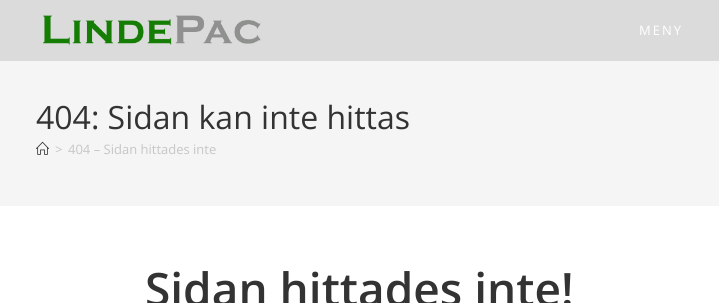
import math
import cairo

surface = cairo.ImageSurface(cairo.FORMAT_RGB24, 719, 303)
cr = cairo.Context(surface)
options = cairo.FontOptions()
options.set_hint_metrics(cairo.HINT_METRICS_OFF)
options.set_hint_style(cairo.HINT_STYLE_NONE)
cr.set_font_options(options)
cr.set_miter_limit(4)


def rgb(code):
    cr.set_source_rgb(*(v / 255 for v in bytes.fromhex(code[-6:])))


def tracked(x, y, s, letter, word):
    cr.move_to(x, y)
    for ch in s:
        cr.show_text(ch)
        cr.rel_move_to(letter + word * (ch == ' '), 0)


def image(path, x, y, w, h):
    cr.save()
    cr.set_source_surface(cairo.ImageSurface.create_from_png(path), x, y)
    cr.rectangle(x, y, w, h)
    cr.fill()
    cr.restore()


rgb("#ffffff")
cr.paint()
rgb("#dbdbdb")
cr.rectangle(0, 0, 719, 61)
cr.fill()
image("img/1.png", 43, 15, 218, 30)
rgb("#f5f5f5")
cr.rectangle(0, 61, 719, 145)
cr.fill()
image("img/2.png", 36, 141, 13, 14)
cr.select_font_face("Open Sans")
cr.set_font_size(13)
rgb("#ffffff")
tracked(639, 35, "MENY", 2, 0)
cr.set_font_size(32)
rgb("#333333")
cr.move_to(36, 129)
cr.show_text("404: Sidan kan inte hittas")
cr.set_font_size(13)
rgb("#c6c6c6")
cr.move_to(55, 154)
cr.show_text(">")
cr.move_to(68, 154)
cr.show_text("404 – Sidan hittades inte")
cr.select_font_face("Open Sans SemiBold")
cr.set_font_size(46)
rgb("#333333")
cr.move_to(145, 306)
cr.show_text("Sidan hittades inte!")
surface.write_to_png("page.png")
